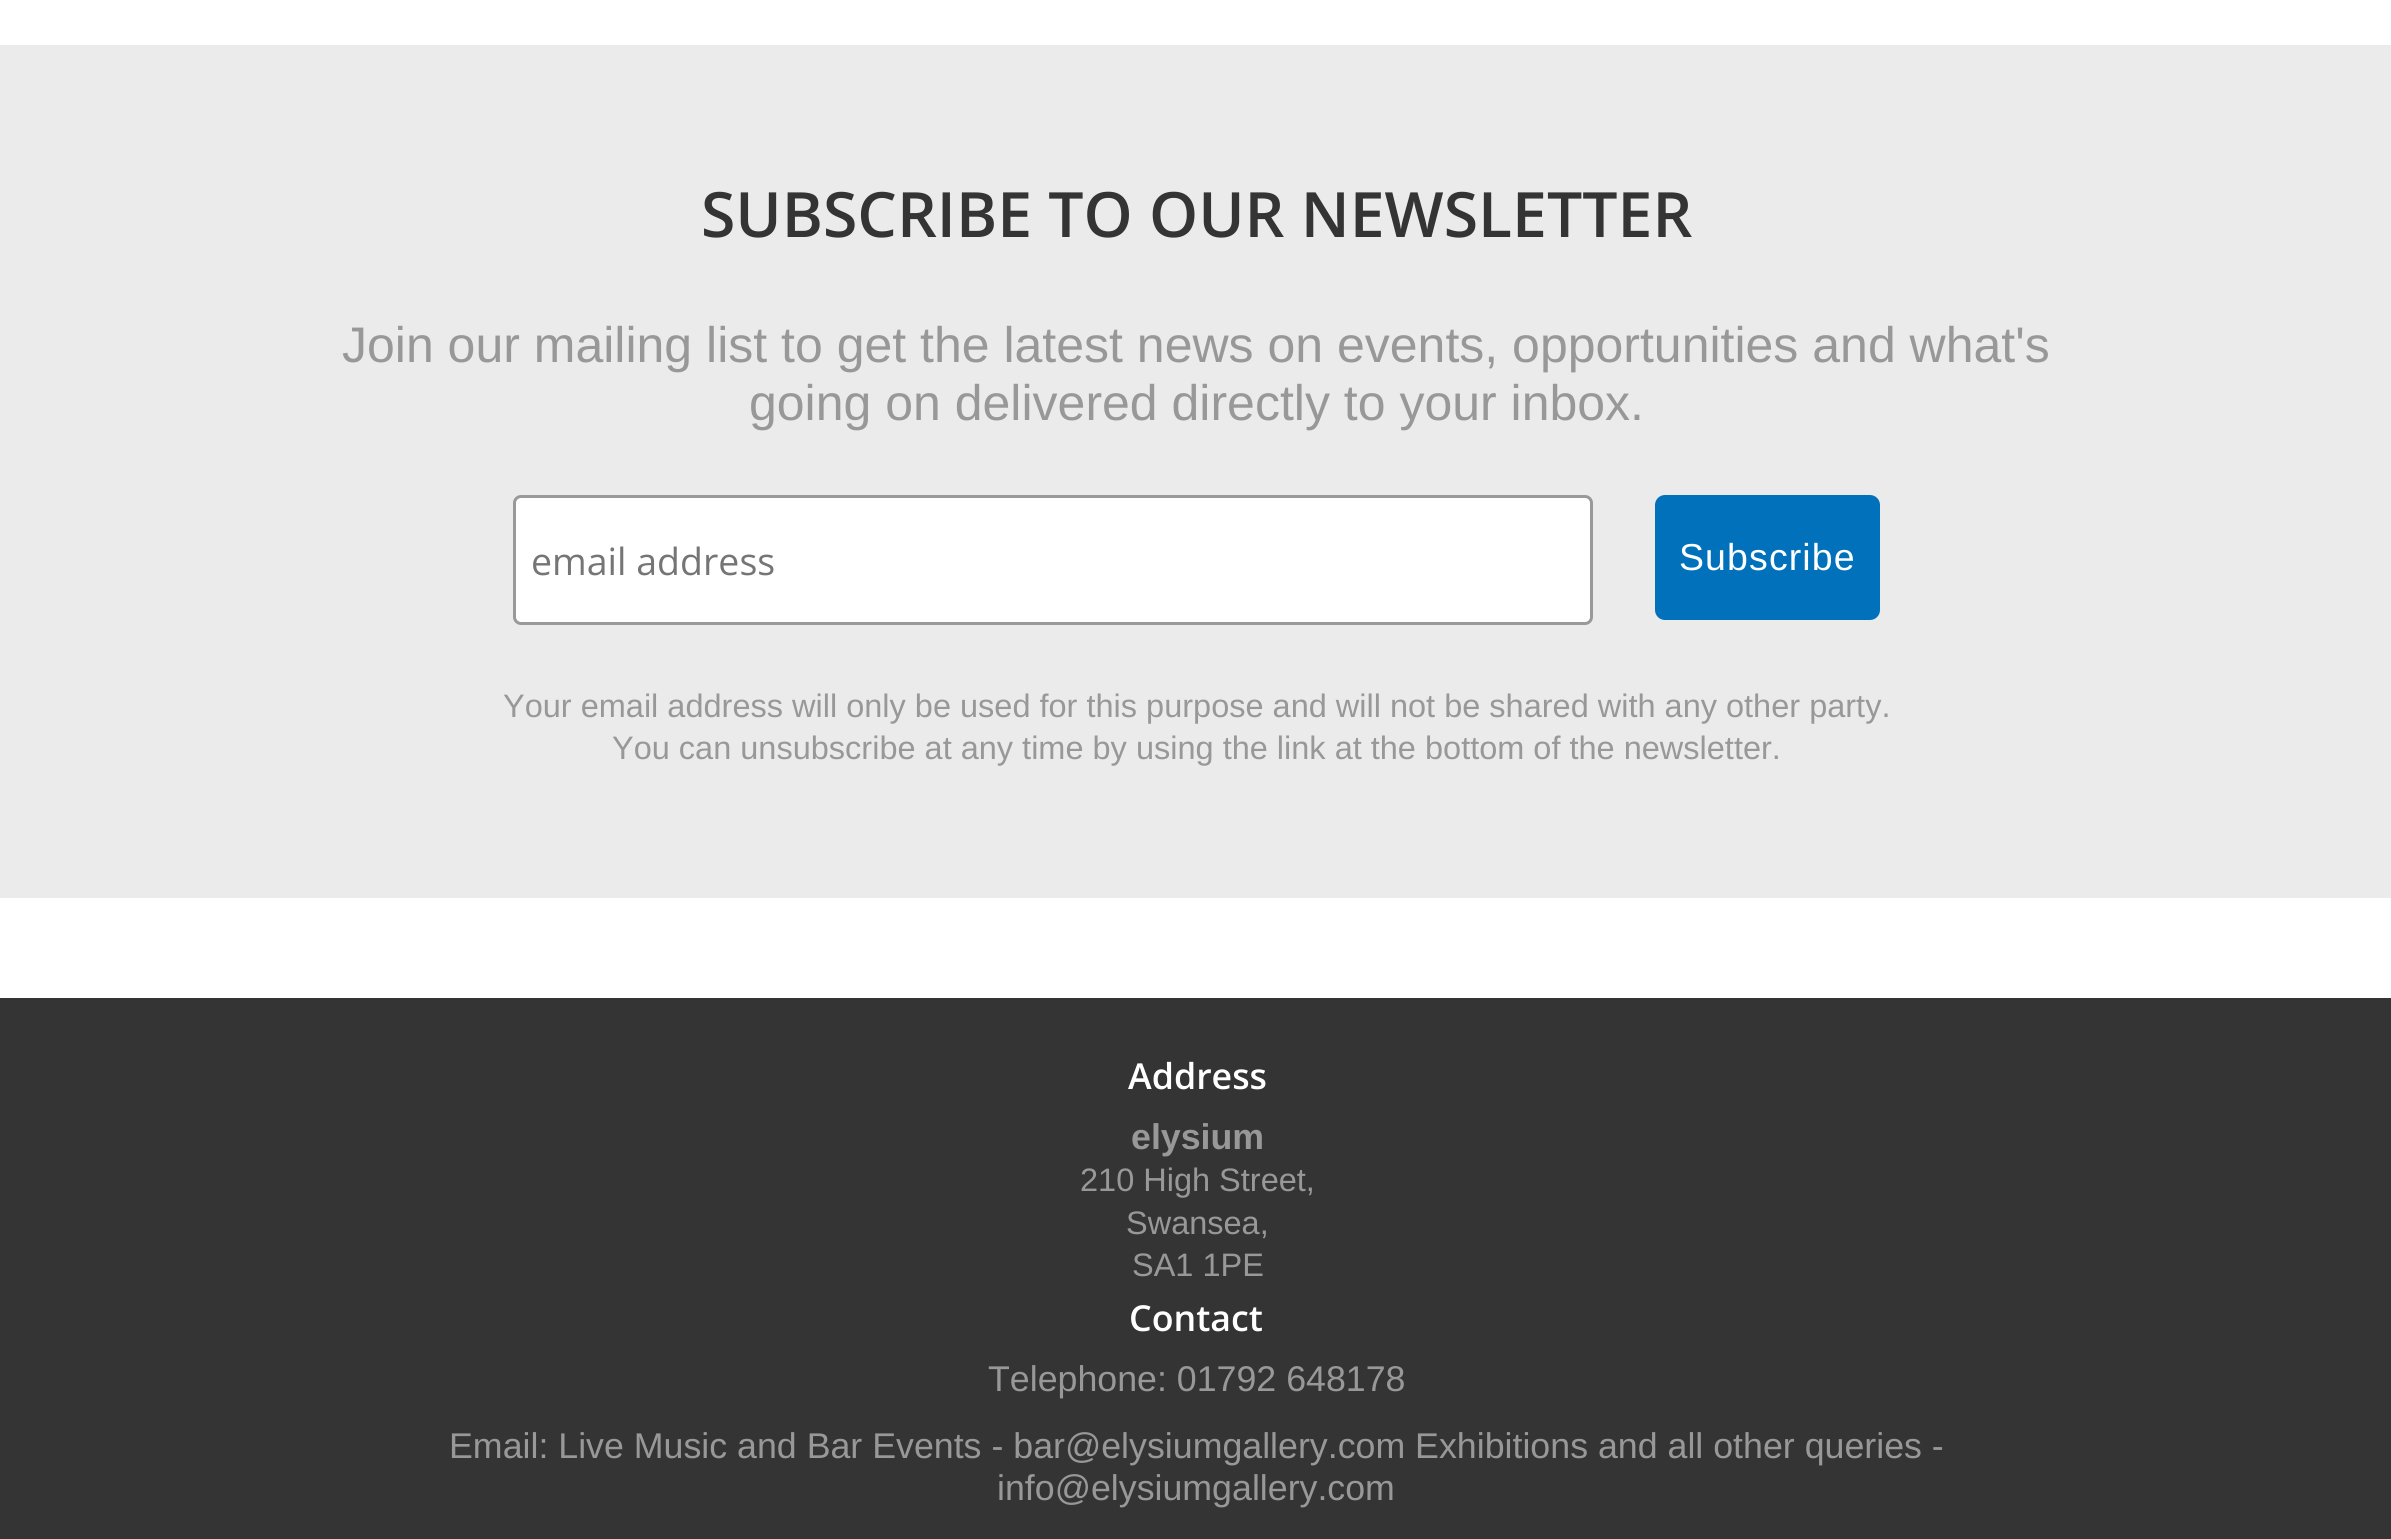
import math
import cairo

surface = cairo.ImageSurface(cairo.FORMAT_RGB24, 2391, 1539)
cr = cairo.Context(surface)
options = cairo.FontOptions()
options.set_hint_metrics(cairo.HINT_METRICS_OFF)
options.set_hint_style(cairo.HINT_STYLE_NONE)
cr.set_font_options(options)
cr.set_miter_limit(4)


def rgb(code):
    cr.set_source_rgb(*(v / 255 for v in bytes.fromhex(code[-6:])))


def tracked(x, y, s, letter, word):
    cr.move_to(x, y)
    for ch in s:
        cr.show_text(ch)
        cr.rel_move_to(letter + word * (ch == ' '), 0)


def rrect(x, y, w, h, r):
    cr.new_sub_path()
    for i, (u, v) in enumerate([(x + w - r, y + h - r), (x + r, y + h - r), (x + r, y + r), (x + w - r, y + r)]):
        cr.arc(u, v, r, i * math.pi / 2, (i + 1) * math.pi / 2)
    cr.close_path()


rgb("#ffffff")
cr.paint()
rgb("#343435")
cr.rectangle(0, 998, 2391, 541)
cr.fill()
rgb("#ebebeb")
cr.rectangle(0, 45, 2391, 853)
cr.fill()
rgb("#ffffff")
rrect(514.5, 496.5, 1077, 127, 6.5)
cr.fill_preserve()
rgb("#999999")
cr.set_line_width(3)
cr.stroke()
rgb("#0171bb")
rrect(1655, 495, 225, 125, 10)
cr.fill()
cr.select_font_face("Open Sans SemiBold")
cr.set_font_size(62.5)
rgb("#343435")
cr.move_to(701, 237)
cr.show_text("SUBSCRIBE TO OUR NEWSLETTER")
cr.select_font_face("Liberation Sans")
cr.set_font_size(50)
rgb("#989898")
cr.move_to(342, 362)
cr.show_text("Join our mailing list to get the latest news on events, opportunities and what's")
cr.move_to(749, 420)
cr.show_text("going on delivered directly to your inbox.")
cr.select_font_face("Open Sans")
cr.set_font_size(37.5)
rgb("#757575")
cr.move_to(531, 575)
cr.show_text("email address")
cr.select_font_face("Liberation Sans")
rgb("#ffffff")
tracked(1679, 570, "Subscribe", 1.1, 0)
cr.set_font_size(32.5)
rgb("#989898")
cr.move_to(503, 717)
cr.show_text("Your email address will only be used for this purpose and will not be shared with any other party.")
cr.move_to(612, 759)
cr.show_text("You can unsubscribe at any time by using the link at the bottom of the newsletter.")
cr.select_font_face("Open Sans SemiBold")
cr.set_font_size(35.75)
rgb("#ffffff")
cr.move_to(1128, 1089)
cr.show_text("Address")
cr.select_font_face("Liberation Sans", cairo.FONT_SLANT_NORMAL, cairo.FONT_WEIGHT_BOLD)
rgb("#989898")
cr.move_to(1131, 1149)
cr.show_text("elysium")
cr.select_font_face("Liberation Sans")
cr.set_font_size(32.5)
for x, y, s in [
    (1080, 1191, "210 High Street,"),
    (1126, 1234, "Swansea,"),
    (1132, 1276, "SA1 1PE"),
]:
    cr.move_to(x, y)
    cr.show_text(s)
cr.select_font_face("Open Sans SemiBold")
cr.set_font_size(35.75)
rgb("#ffffff")
cr.move_to(1129, 1331)
cr.show_text("Contact")
cr.select_font_face("Liberation Sans")
rgb("#989898")
for x, y, s in [
    (988, 1391, "Telephone: 01792 648178"),
    (449, 1458, "Email: Live Music and Bar Events - bar@elysiumgallery.com Exhibitions and all other queries -"),
    (997, 1500, "info@elysiumgallery.com"),
]:
    cr.move_to(x, y)
    cr.show_text(s)
surface.write_to_png("page.png")
